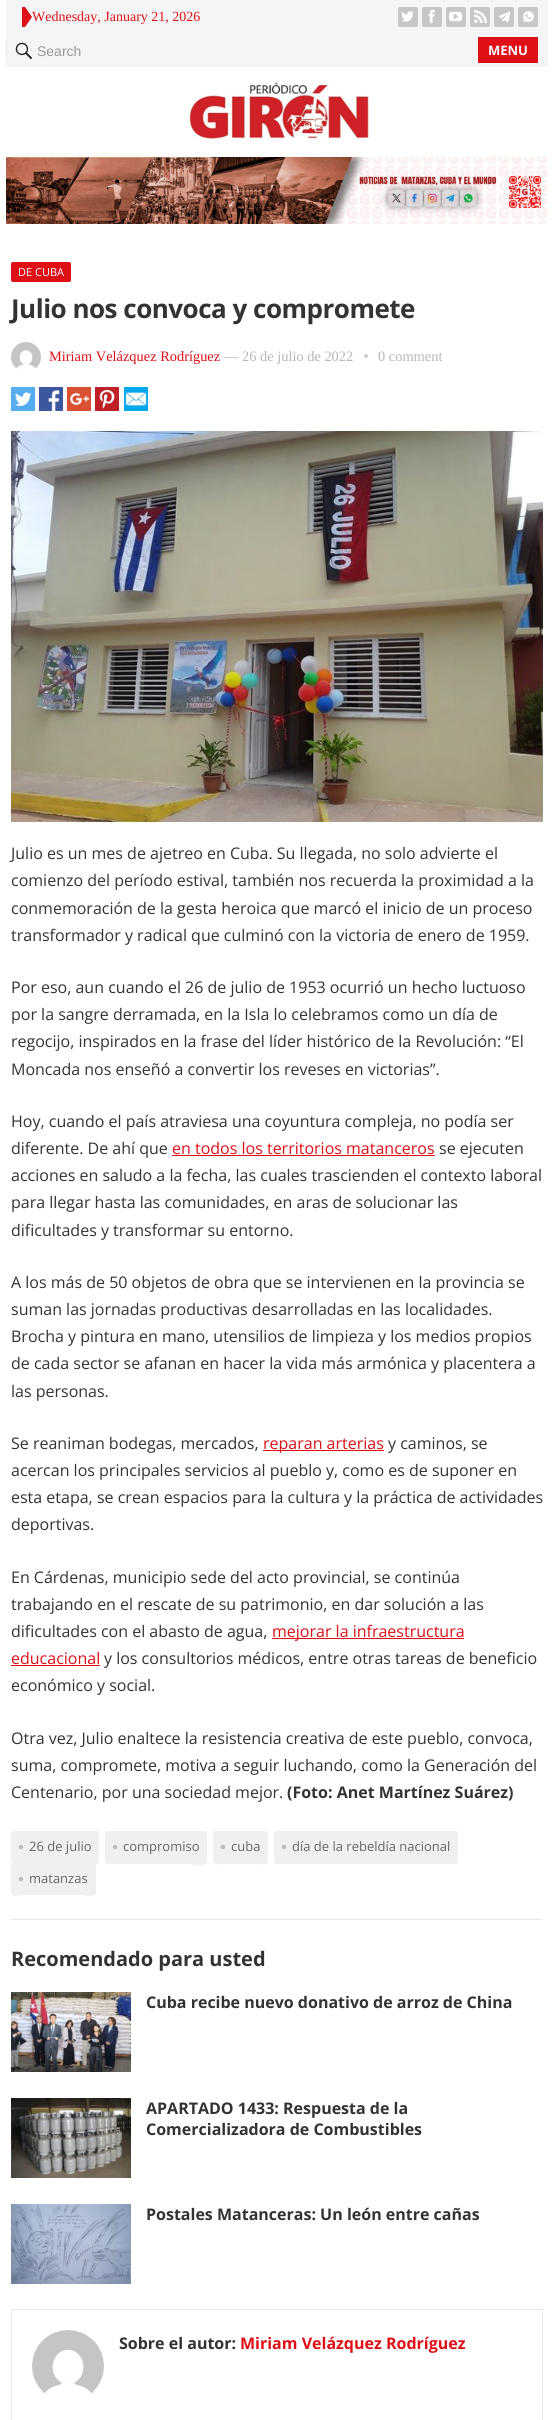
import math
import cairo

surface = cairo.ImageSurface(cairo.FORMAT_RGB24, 554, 2420)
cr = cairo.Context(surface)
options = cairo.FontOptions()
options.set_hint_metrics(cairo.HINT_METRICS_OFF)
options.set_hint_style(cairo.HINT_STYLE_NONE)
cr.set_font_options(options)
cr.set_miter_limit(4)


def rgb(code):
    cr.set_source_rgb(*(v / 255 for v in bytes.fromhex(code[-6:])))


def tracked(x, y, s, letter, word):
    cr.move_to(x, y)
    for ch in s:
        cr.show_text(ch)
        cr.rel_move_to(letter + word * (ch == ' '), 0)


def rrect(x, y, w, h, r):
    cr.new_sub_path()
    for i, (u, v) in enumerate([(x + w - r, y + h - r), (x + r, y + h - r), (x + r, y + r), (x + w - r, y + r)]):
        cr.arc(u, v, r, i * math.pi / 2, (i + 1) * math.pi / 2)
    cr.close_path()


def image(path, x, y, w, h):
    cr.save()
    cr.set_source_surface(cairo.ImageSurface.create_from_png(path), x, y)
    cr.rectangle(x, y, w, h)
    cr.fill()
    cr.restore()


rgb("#ffffff")
cr.paint()
rgb("#f5f5f5")
cr.rectangle(6, 0, 542, 67)
cr.fill()
rgb("#de0f17")
cr.new_path()
cr.move_to(25, 27)
cr.line_to(25, 7)
cr.line_to(32, 17)
cr.close_path()
cr.fill()
cr.rectangle(22, 7, 3, 20)
cr.fill()
rgb("#c7c7c7")
rrect(398, 7, 20, 20, 2)
cr.fill()
image("img/1.png", 401, 11, 13, 11)
rrect(422, 7, 20, 20, 2)
cr.fill()
image("img/2.png", 428, 10, 7, 13)
rrect(446, 7, 20, 20, 2)
cr.fill()
image("img/3.png", 449, 11, 13, 11)
rrect(470, 7, 20, 20, 2)
cr.fill()
image("img/4.png", 474, 10, 13, 13)
rrect(494, 7, 20, 20, 2)
cr.fill()
image("img/5.png", 498, 11, 13, 11)
rrect(518, 7, 20, 20, 2)
cr.fill()
image("img/6.png", 523, 11, 12, 12)
cr.new_path()
cr.move_to(6.5, 40)
cr.line_to(6.5, 60)
rgb("#dddddd")
cr.set_line_width(1)
cr.set_dash([1, 1])
cr.stroke()
image("img/7.png", 15, 42, 18, 18)
rgb("#de0f17")
cr.rectangle(478, 37, 60, 26)
cr.fill()
image("img/8.png", 189, 82, 180, 57)
image("img/9.png", 6, 157, 542, 67)
rrect(11, 262, 60, 20, 2)
cr.fill()
image("img/10.png", 11, 342, 30, 27)
rgb("#cccccc")
cr.arc(366, 356, 2, 0, 2 * math.pi)
cr.fill()
image("img/11.png", 11, 387, 24, 24)
image("img/12.png", 39, 387, 24, 24)
image("img/13.png", 67, 387, 24, 24)
image("img/14.png", 95, 387, 24, 24)
image("img/15.png", 124, 387, 24, 24)
image("img/16.png", 11, 431, 532, 391)
for x, y, w, h, color in [
    (172, 1155, 263, 1, "#de0f17"),
    (263, 1450, 121, 1, "#de0f17"),
    (272, 1638, 192, 1, "#de0f17"),
    (11, 1665, 89, 1, "#de0f17"),
]:
    rgb(color)
    cr.rectangle(x, y, w, h)
    cr.fill()
rgb("#f2f2f2")
cr.new_path()
cr.move_to(11, 1861)
cr.curve_to(11, 1868, 25, 1864, 27, 1864)
cr.line_to(83, 1864)
cr.curve_to(85, 1864, 99, 1868, 99, 1861)
cr.curve_to(99, 1862, 98, 1863, 97, 1863)
cr.line_to(13, 1863)
cr.curve_to(12, 1863, 11, 1862, 11, 1861)
cr.close_path()
cr.fill()
rgb("#f0f0f0")
rrect(11, 1831, 88, 32, 2)
cr.fill()
image("img/17.png", 18, 1844, 6, 6)
rgb("#f2f2f2")
cr.new_path()
cr.move_to(105, 1861)
cr.curve_to(105, 1862, 105, 1864, 107, 1864)
cr.line_to(189, 1864)
cr.curve_to(190, 1864, 207, 1869, 207, 1861)
cr.line_to(207, 1862)
cr.line_to(205, 1863)
cr.line_to(107, 1863)
cr.curve_to(106, 1863, 105, 1862, 105, 1861)
cr.close_path()
cr.fill()
rgb("#f0f0f0")
rrect(105, 1831, 102, 32, 2)
cr.fill()
image("img/17.png", 112, 1844, 6, 6)
rgb("#f2f2f2")
cr.new_path()
cr.move_to(213, 1861)
cr.curve_to(213, 1866, 220, 1864, 224, 1864)
cr.line_to(258, 1864)
cr.curve_to(261, 1864, 268, 1866, 268, 1861)
cr.line_to(267, 1863)
cr.line_to(214, 1863)
cr.close_path()
cr.fill()
rgb("#f0f0f0")
rrect(213, 1831, 55, 32, 2)
cr.fill()
image("img/17.png", 220, 1844, 6, 6)
rgb("#f2f2f2")
cr.new_path()
cr.move_to(274, 1861)
cr.line_to(274, 1862)
cr.curve_to(274, 1863, 275, 1864, 276, 1864)
cr.line_to(456, 1864)
cr.curve_to(457, 1864, 458, 1863, 458, 1862)
cr.line_to(458, 1861)
cr.curve_to(458, 1862, 457, 1863, 456, 1863)
cr.line_to(276, 1863)
cr.curve_to(275, 1863, 274, 1862, 274, 1861)
cr.close_path()
cr.fill()
rgb("#f0f0f0")
rrect(274, 1831, 184, 32, 2)
cr.fill()
image("img/17.png", 281, 1844, 6, 6)
rgb("#f2f2f2")
cr.new_path()
cr.move_to(11, 1892)
cr.curve_to(11, 1899, 24, 1895, 26, 1895)
cr.line_to(80, 1895)
cr.curve_to(83, 1895, 96, 1899, 96, 1892)
cr.curve_to(96, 1893, 95, 1894, 94, 1894)
cr.line_to(13, 1894)
cr.curve_to(12, 1894, 11, 1893, 11, 1892)
cr.close_path()
cr.fill()
rgb("#f0f0f0")
rrect(11, 1863, 85, 31, 2)
cr.fill()
image("img/17.png", 18, 1876, 6, 6)
rgb("#e9e9e9")
cr.rectangle(11, 1919, 532, 1)
cr.fill()
image("img/18.png", 11, 1992, 120, 80)
image("img/19.png", 11, 2098, 120, 80)
image("img/20.png", 11, 2204, 120, 80)
cr.rectangle(11.5, 2309.5, 531, 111)
cr.set_dash([])
cr.stroke()
image("img/21.png", 32, 2330, 72, 64)
cr.select_font_face("Liberation Serif")
cr.set_font_size(14)
rgb("#de0f17")
cr.move_to(32, 21)
cr.show_text("Wednesday, January 21, 2026")
cr.select_font_face("Liberation Sans")
rgb("#999999")
cr.move_to(37, 56)
cr.show_text("Search")
cr.select_font_face("Open Sans", cairo.FONT_SLANT_NORMAL, cairo.FONT_WEIGHT_BOLD)
cr.set_font_size(13)
rgb("#ffffff")
cr.move_to(488, 55)
cr.show_text("MENU")
cr.select_font_face("Open Sans")
cr.set_font_size(11)
cr.move_to(18, 276)
cr.show_text("DE CUBA")
cr.select_font_face("Open Sans", cairo.FONT_SLANT_NORMAL, cairo.FONT_WEIGHT_BOLD)
cr.set_font_size(26)
rgb("#333333")
tracked(11, 318, "Julio nos convoca y compromete", -0.5, 0)
cr.select_font_face("Liberation Serif")
cr.set_font_size(14.4)
rgb("#de0f17")
cr.move_to(49, 361)
cr.show_text("Miriam Velázquez Rodríguez")
rgb("#b7b7b7")
cr.move_to(224, 361)
cr.show_text("— 26 de julio de 2022")
cr.move_to(378, 361)
cr.show_text("0 comment")
cr.select_font_face("Open Sans")
cr.set_font_size(16)
rgb("#333333")
for x, y, s in [
    (11, 859, "Julio es un mes de ajetreo en Cuba. Su llegada, no solo advierte el"),
    (11, 886, "comienzo del período estival, también nos recuerda la proximidad a la"),
    (11, 914, "conmemoración de la gesta heroica que marcó el inicio de un proceso"),
    (11, 941, "transformador y radical que culminó con la victoria de enero de 1959."),
    (11, 993, "Por eso, aun cuando el 26 de julio de 1953 ocurrió un hecho luctuoso"),
    (11, 1020, "por la sangre derramada, en la Isla lo celebramos como un día de"),
    (11, 1047, "regocijo, inspirados en la frase del líder histórico de la Revolución: “El"),
    (11, 1075, "Moncada nos enseñó a convertir los reveses en victorias”."),
    (11, 1127, "Hoy, cuando el país atraviesa una coyuntura compleja, no podía ser"),
    (11, 1154, "diferente. De ahí que"),
]:
    cr.move_to(x, y)
    cr.show_text(s)
rgb("#de0f17")
cr.move_to(172, 1154)
cr.show_text("en todos los territorios matanceros")
rgb("#333333")
for x, y, s in [
    (439, 1154, "se ejecuten"),
    (11, 1181, "acciones en saludo a la fecha, las cuales trascienden el contexto laboral"),
    (11, 1208, "para llegar hasta las comunidades, en aras de solucionar las"),
    (11, 1236, "dificultades y transformar su entorno."),
    (11, 1288, "A los más de 50 objetos de obra que se intervienen en la provincia se"),
    (11, 1315, "suman las jornadas productivas desarrolladas en las localidades."),
    (11, 1342, "Brocha y pintura en mano, utensilios de limpieza y los medios propios"),
    (11, 1369, "de cada sector se afanan en hacer la vida más armónica y placentera a"),
    (11, 1397, "las personas."),
    (11, 1449, "Se reaniman bodegas, mercados,"),
]:
    cr.move_to(x, y)
    cr.show_text(s)
rgb("#de0f17")
cr.move_to(263, 1449)
cr.show_text("reparan arterias")
rgb("#333333")
for x, y, s in [
    (388, 1449, "y caminos, se"),
    (11, 1476, "acercan los principales servicios al pueblo y, como es de suponer en"),
    (11, 1503, "esta etapa, se crean espacios para la cultura y la práctica de actividades"),
    (11, 1530, "deportivas."),
    (11, 1583, "En Cárdenas, municipio sede del acto provincial, se continúa"),
    (11, 1610, "trabajando en el rescate de su patrimonio, en dar solución a las"),
    (11, 1637, "dificultades con el abasto de agua,"),
]:
    cr.move_to(x, y)
    cr.show_text(s)
rgb("#de0f17")
cr.move_to(272, 1637)
cr.show_text("mejorar la infraestructura")
cr.move_to(11, 1664)
cr.show_text("educacional")
rgb("#333333")
for x, y, s in [
    (104, 1664, "y los consultorios médicos, entre otras tareas de beneficio"),
    (11, 1691, "económico y social."),
    (11, 1744, "Otra vez, Julio enaltece la resistencia creativa de este pueblo, convoca,"),
    (11, 1771, "suma, compromete, motiva a seguir luchando, como la Generación del"),
    (11, 1798, "Centenario, por una sociedad mejor."),
]:
    cr.move_to(x, y)
    cr.show_text(s)
cr.select_font_face("Open Sans", cairo.FONT_SLANT_NORMAL, cairo.FONT_WEIGHT_BOLD)
cr.move_to(287, 1798)
cr.show_text("(Foto: Anet Martínez Suárez)")
cr.select_font_face("Open Sans")
cr.set_font_size(13)
rgb("#666666")
for x, y, s in [
    (29, 1851, "26 de julio"),
    (123, 1851, "compromiso"),
    (231, 1851, "cuba"),
    (292, 1851, "día de la rebeldía nacional"),
    (29, 1883, "matanzas"),
]:
    cr.move_to(x, y)
    cr.show_text(s)
cr.select_font_face("Open Sans", cairo.FONT_SLANT_NORMAL, cairo.FONT_WEIGHT_BOLD)
cr.set_font_size(20)
rgb("#333333")
cr.move_to(11, 1966)
cr.show_text("Recomendado para usted")
cr.set_font_size(16)
for x, y, s in [
    (146, 2008, "Cuba recibe nuevo donativo de arroz de China"),
    (146, 2114, "APARTADO 1433: Respuesta de la"),
    (146, 2135, "Comercializadora de Combustibles"),
    (146, 2220, "Postales Matanceras: Un león entre cañas"),
    (119, 2349, "Sobre el autor:"),
]:
    cr.move_to(x, y)
    cr.show_text(s)
rgb("#de0f17")
cr.move_to(240, 2349)
cr.show_text("Miriam Velázquez Rodríguez")
surface.write_to_png("page.png")
